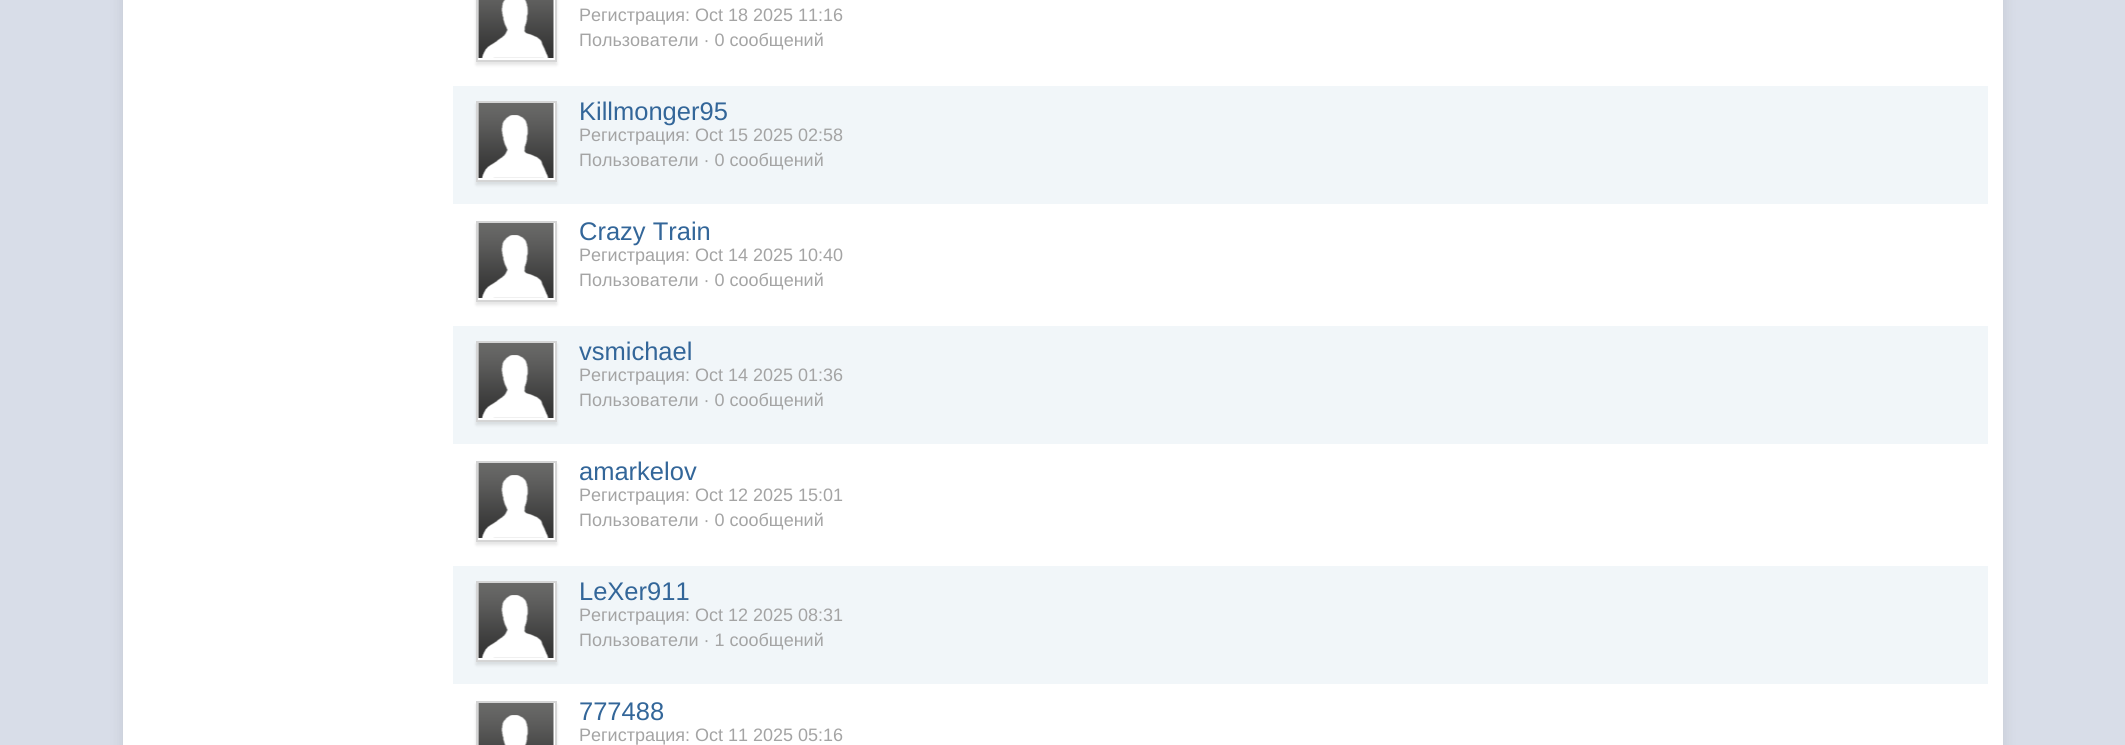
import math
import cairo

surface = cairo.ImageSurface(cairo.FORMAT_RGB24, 2125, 745)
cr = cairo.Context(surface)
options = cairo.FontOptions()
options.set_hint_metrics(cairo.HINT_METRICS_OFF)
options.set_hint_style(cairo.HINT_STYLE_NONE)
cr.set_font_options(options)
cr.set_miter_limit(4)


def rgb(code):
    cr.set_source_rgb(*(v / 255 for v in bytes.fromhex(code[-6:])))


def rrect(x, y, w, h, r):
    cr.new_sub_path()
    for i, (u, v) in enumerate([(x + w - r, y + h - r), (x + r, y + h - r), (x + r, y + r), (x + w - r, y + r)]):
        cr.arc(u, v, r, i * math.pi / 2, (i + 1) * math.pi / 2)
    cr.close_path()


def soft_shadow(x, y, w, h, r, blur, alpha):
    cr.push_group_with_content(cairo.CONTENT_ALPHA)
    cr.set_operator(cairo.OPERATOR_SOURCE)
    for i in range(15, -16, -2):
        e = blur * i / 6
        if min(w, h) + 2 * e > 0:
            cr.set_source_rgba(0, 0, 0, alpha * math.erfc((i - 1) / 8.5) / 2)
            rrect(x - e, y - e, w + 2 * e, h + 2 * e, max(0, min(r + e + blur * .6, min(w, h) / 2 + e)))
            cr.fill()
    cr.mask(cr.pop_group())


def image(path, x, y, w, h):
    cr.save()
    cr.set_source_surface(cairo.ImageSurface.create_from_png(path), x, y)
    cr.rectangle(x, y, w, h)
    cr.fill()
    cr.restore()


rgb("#d8dde8")
cr.paint()
rgb("#000000")
soft_shadow(123, -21, 1880, 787, 0, 7, 0.1)
rgb("#ffffff")
cr.rectangle(123, 0, 1880, 745)
cr.fill()
rgb("#000000")
soft_shadow(476, -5, 81, 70, 0, 1.5, 0.1)
rgb("#ffffff")
cr.rectangle(477, -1, 79, 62)
cr.fill_preserve()
rgb("#d5d5d5")
cr.stroke()
image("img/1.png", 478, 0, 76, 58)
rgb("#f1f6f9")
cr.rectangle(453, 86, 1535, 118)
cr.fill()
rgb("#000000")
soft_shadow(476, 104, 81, 81, 0, 1.5, 0.1)
rgb("#ffffff")
cr.rectangle(477, 102, 79, 79)
cr.fill_preserve()
rgb("#d5d5d5")
cr.stroke()
image("img/2.png", 478, 103, 76, 75)
rgb("#000000")
soft_shadow(476, 224, 81, 81, 0, 1.5, 0.1)
rgb("#ffffff")
cr.rectangle(477, 222, 79, 79)
cr.fill_preserve()
rgb("#d5d5d5")
cr.stroke()
image("img/2.png", 478, 223, 76, 75)
rgb("#f1f6f9")
cr.rectangle(453, 326, 1535, 118)
cr.fill()
rgb("#000000")
soft_shadow(476, 344, 81, 81, 0, 1.5, 0.1)
rgb("#ffffff")
cr.rectangle(477, 342, 79, 79)
cr.fill_preserve()
rgb("#d5d5d5")
cr.stroke()
image("img/2.png", 478, 343, 76, 75)
rgb("#000000")
soft_shadow(476, 464, 81, 81, 0, 1.5, 0.1)
rgb("#ffffff")
cr.rectangle(477, 462, 79, 79)
cr.fill_preserve()
rgb("#d5d5d5")
cr.stroke()
image("img/2.png", 478, 463, 76, 75)
rgb("#f1f6f9")
cr.rectangle(453, 566, 1535, 118)
cr.fill()
rgb("#000000")
soft_shadow(476, 584, 81, 81, 0, 1.5, 0.1)
rgb("#ffffff")
cr.rectangle(477, 582, 79, 79)
cr.fill_preserve()
rgb("#d5d5d5")
cr.stroke()
image("img/2.png", 478, 583, 76, 75)
rgb("#000000")
soft_shadow(476, 704, 81, 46, 0, 1.5, 0.1)
rgb("#ffffff")
cr.rectangle(477, 702, 79, 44)
cr.fill_preserve()
rgb("#d5d5d5")
cr.stroke()
image("img/3.png", 478, 703, 76, 42)
cr.select_font_face("Liberation Sans")
cr.set_font_size(18)
rgb("#a4a4a4")
cr.move_to(579, 21)
cr.show_text("Регистрация: Oct 18 2025 11:16")
cr.move_to(579, 46)
cr.show_text("Пользователи · 0 сообщений")
cr.set_font_size(25.5)
rgb("#336699")
cr.move_to(579, 120)
cr.show_text("Killmonger95")
cr.set_font_size(18)
rgb("#a4a4a4")
cr.move_to(579, 141)
cr.show_text("Регистрация: Oct 15 2025 02:58")
cr.move_to(579, 166)
cr.show_text("Пользователи · 0 сообщений")
cr.set_font_size(25.5)
rgb("#336699")
cr.move_to(579, 240)
cr.show_text("Crazy Train")
cr.set_font_size(18)
rgb("#a4a4a4")
cr.move_to(579, 261)
cr.show_text("Регистрация: Oct 14 2025 10:40")
cr.move_to(579, 286)
cr.show_text("Пользователи · 0 сообщений")
cr.set_font_size(25.5)
rgb("#336699")
cr.move_to(579, 360)
cr.show_text("vsmichael")
cr.set_font_size(18)
rgb("#a4a4a4")
cr.move_to(579, 381)
cr.show_text("Регистрация: Oct 14 2025 01:36")
cr.move_to(579, 406)
cr.show_text("Пользователи · 0 сообщений")
cr.set_font_size(25.5)
rgb("#336699")
cr.move_to(579, 480)
cr.show_text("amarkelov")
cr.set_font_size(18)
rgb("#a4a4a4")
cr.move_to(579, 501)
cr.show_text("Регистрация: Oct 12 2025 15:01")
cr.move_to(579, 526)
cr.show_text("Пользователи · 0 сообщений")
cr.set_font_size(25.5)
rgb("#336699")
cr.move_to(579, 600)
cr.show_text("LeXer911")
cr.set_font_size(18)
rgb("#a4a4a4")
cr.move_to(579, 621)
cr.show_text("Регистрация: Oct 12 2025 08:31")
cr.move_to(579, 646)
cr.show_text("Пользователи · 1 сообщений")
cr.set_font_size(25.5)
rgb("#336699")
cr.move_to(579, 720)
cr.show_text("777488")
cr.set_font_size(18)
rgb("#a4a4a4")
cr.move_to(579, 741)
cr.show_text("Регистрация: Oct 11 2025 05:16")
surface.write_to_png("page.png")
